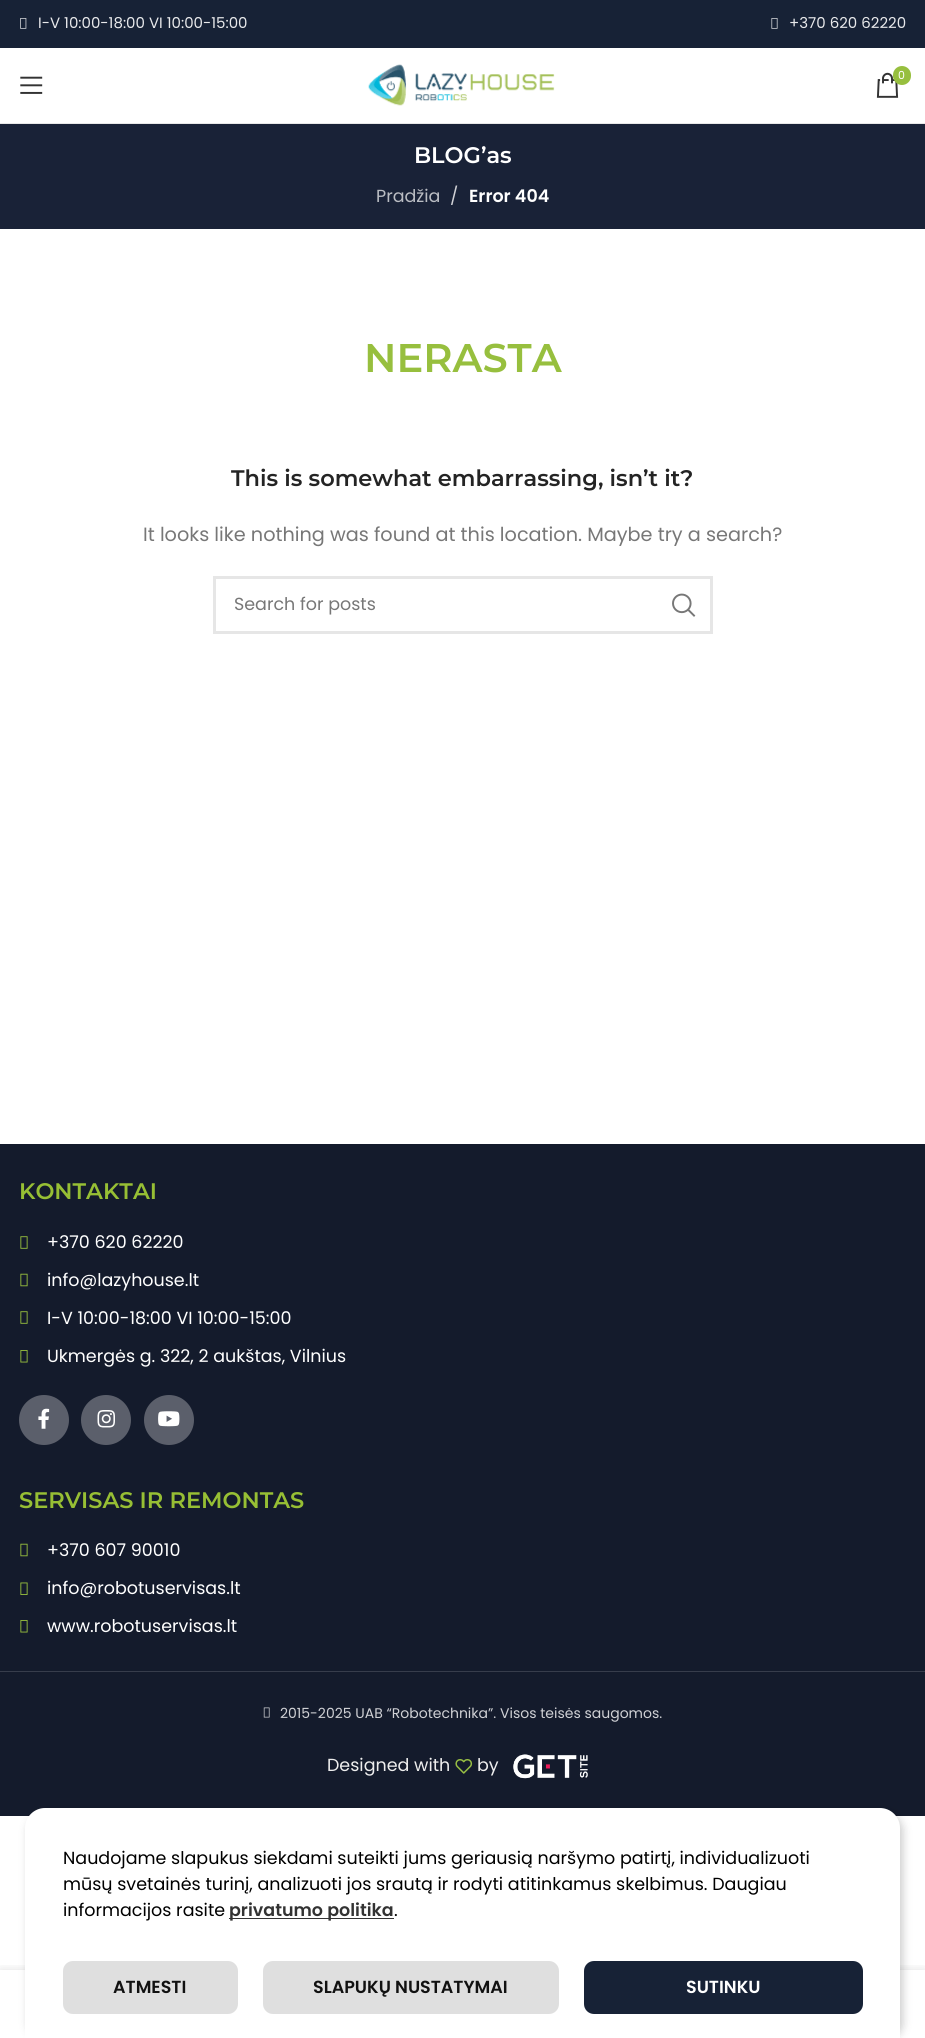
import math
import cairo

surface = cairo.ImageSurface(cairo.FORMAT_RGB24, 925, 2038)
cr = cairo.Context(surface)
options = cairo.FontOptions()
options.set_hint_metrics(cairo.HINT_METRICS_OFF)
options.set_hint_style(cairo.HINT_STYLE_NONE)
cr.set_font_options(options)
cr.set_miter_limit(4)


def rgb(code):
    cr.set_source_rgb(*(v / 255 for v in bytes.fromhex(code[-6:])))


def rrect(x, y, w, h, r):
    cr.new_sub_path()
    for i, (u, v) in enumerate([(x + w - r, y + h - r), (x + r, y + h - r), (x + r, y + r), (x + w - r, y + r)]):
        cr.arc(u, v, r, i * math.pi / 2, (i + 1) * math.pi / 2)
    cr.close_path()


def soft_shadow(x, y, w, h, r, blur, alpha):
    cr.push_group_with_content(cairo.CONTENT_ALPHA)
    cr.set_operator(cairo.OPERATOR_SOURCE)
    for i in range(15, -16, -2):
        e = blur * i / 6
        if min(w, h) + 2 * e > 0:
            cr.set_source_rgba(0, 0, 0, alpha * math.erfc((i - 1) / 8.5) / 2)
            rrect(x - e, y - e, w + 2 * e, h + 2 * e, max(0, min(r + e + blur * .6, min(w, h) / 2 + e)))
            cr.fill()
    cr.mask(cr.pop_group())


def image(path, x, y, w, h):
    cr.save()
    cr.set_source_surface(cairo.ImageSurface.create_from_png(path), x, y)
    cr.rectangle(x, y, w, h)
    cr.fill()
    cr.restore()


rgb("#ffffff")
cr.paint()
rgb("#172236")
cr.rectangle(0, 0, 925, 48)
cr.fill()
image("img/1.png", 20, 18, 7, 11)
image("img/2.png", 771, 18, 7, 11)
rgb("#e8e8e8")
cr.rectangle(0, 123, 925, 1)
cr.fill()
image("img/3.png", 368, 64, 187, 42)
image("img/4.png", 876, 72, 23, 26)
rgb("#97bf3e")
rrect(893, 66, 18, 19, 9)
cr.fill()
image("img/5.png", 20, 76, 23, 18)
rgb("#192237")
cr.rectangle(0, 124, 925, 105)
cr.fill()
cr.rectangle(214.5, 577.5, 497, 55)
rgb("#e6e6e6")
cr.set_line_width(3)
cr.stroke()
image("img/6.png", 672, 593, 24, 24)
rgb("#141b2c")
cr.rectangle(0, 1144, 925, 672)
cr.fill()
image("img/7.png", 20, 1236, 8, 13)
image("img/8.png", 20, 1273, 8, 14)
image("img/7.png", 20, 1311, 8, 13)
image("img/9.png", 20, 1350, 8, 13)
rgb("#5b5f6b")
cr.arc(44, 1420, 25, 0, 2 * math.pi)
cr.fill()
image("img/10.png", 38, 1408, 12, 21)
cr.arc(106, 1420, 25, 0, 2 * math.pi)
cr.fill()
image("img/11.png", 97, 1410, 18, 18)
cr.arc(169, 1420, 25, 0, 2 * math.pi)
cr.fill()
image("img/12.png", 158, 1411, 22, 16)
image("img/8.png", 20, 1543, 8, 14)
image("img/13.png", 20, 1582, 8, 13)
image("img/9.png", 20, 1620, 8, 13)
rgb("#373d4c")
cr.rectangle(0, 1671, 925, 1)
cr.fill()
image("img/14.png", 263, 1707, 7, 11)
image("img/15.png", 455, 1759, 18, 15)
image("img/16.png", 513, 1754, 75, 25)
rgb("#000000")
soft_shadow(28, 1811, 875, 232, 20, 4.5, 0.2)
cr.save()
cr.rectangle(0, 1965, 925, 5)
cr.clip()
soft_shadow(0, 1970, 925, 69, 0, 5.5, 0.12)
cr.restore()
rgb("#ffffff")
cr.new_path()
cr.move_to(45, 1808)
cr.line_to(880, 1808)
cr.curve_to(891, 1808, 900, 1817, 900, 1828)
cr.line_to(900, 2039)
cr.line_to(25, 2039)
cr.line_to(25, 1828)
cr.curve_to(25, 1817, 34, 1808, 45, 1808)
cr.close_path()
cr.fill()
rgb("#333333")
cr.rectangle(229, 1918, 165, 1)
cr.fill()
rgb("#dfdfdf")
rrect(63, 1961, 175, 53, 10)
cr.fill()
rrect(263, 1961, 296, 53, 10)
cr.fill()
rgb("#172236")
rrect(584, 1961, 279, 53, 10)
cr.fill()
cr.select_font_face("Poppins")
cr.set_font_size(15)
rgb("#e8e9eb")
cr.move_to(38, 28)
cr.show_text("I-V 10:00-18:00 VI 10:00-15:00")
cr.move_to(789, 28)
cr.show_text("+370 620 62220")
cr.set_font_size(11)
rgb("#ffffff")
cr.move_to(898, 79)
cr.show_text("0")
cr.select_font_face("Montserrat SemiBold")
cr.set_font_size(22.5)
cr.move_to(414, 163)
cr.show_text("BLOG’as")
cr.select_font_face("Poppins")
cr.set_font_size(17.5)
rgb("#babdc3")
cr.move_to(376, 202)
cr.show_text("Pradžia")
rgb("#d0d1d5")
cr.move_to(450, 202)
cr.show_text("/")
cr.select_font_face("Poppins SemiBold")
rgb("#ffffff")
cr.move_to(469, 202)
cr.show_text("Error 404")
cr.select_font_face("Montserrat SemiBold")
cr.set_font_size(40)
rgb("#97bf3e")
cr.move_to(364, 372)
cr.show_text("NERASTA")
cr.set_font_size(22.5)
rgb("#242424")
cr.move_to(231, 486)
cr.show_text("This is somewhat embarrassing, isn’t it?")
cr.select_font_face("Poppins")
cr.set_font_size(19.25)
rgb("#777777")
cr.move_to(143, 541)
cr.show_text("It looks like nothing was found at this location. Maybe try a search?")
cr.set_font_size(17.5)
cr.move_to(234, 610)
cr.show_text("Search for posts")
cr.select_font_face("Montserrat SemiBold")
cr.set_font_size(22.5)
rgb("#97bf34")
cr.move_to(19, 1199)
cr.show_text("KONTAKTAI")
cr.select_font_face("Poppins")
cr.set_font_size(17.5)
rgb("#ffffff")
for x, y, s in [
    (47, 1248, "+370 620 62220"),
    (47, 1286, "info@lazyhouse.lt"),
    (47, 1324, "I-V 10:00-18:00 VI 10:00-15:00"),
    (47, 1362, "Ukmergės g. 322, 2 aukštas, Vilnius"),
]:
    cr.move_to(x, y)
    cr.show_text(s)
cr.select_font_face("Montserrat SemiBold")
cr.set_font_size(22.5)
rgb("#97bf34")
cr.move_to(19, 1508)
cr.show_text("SERVISAS IR REMONTAS")
cr.select_font_face("Poppins")
cr.set_font_size(17.5)
rgb("#ffffff")
for x, y, s in [
    (47, 1556, "+370 607 90010"),
    (47, 1594, "info@robotuservisas.lt"),
    (47, 1632, "www.robotuservisas.lt"),
]:
    cr.move_to(x, y)
    cr.show_text(s)
cr.set_font_size(14)
rgb("#d0d1d5")
cr.move_to(280, 1718)
cr.show_text("2015-2025 UAB “Robotechnika”. Visos teisės saugomos.")
cr.set_font_size(17.5)
rgb("#eeeeee")
cr.move_to(327, 1771)
cr.show_text("Designed with")
cr.move_to(477, 1771)
cr.show_text("by")
rgb("#000000")
for x, y, s in [
    (63, 1864, "Naudojame slapukus siekdami suteikti jums geriausią naršymo patirtį, individualizuoti"),
    (63, 1890, "mūsų svetainės turinį, analizuoti jos srautą ir rodyti atitinkamus skelbimus. Daugiau"),
    (63, 1916, "informacijos rasite"),
]:
    cr.move_to(x, y)
    cr.show_text(s)
cr.select_font_face("Poppins SemiBold")
rgb("#333333")
cr.move_to(229, 1916)
cr.show_text("privatumo politika")
cr.select_font_face("Poppins")
rgb("#000000")
cr.move_to(394, 1916)
cr.show_text(".")
cr.select_font_face("Poppins SemiBold")
rgb("#111111")
cr.move_to(113, 1993)
cr.show_text("ATMESTI")
cr.move_to(313, 1993)
cr.show_text("SLAPUKŲ NUSTATYMAI")
rgb("#ffffff")
cr.move_to(686, 1993)
cr.show_text("SUTINKU")
surface.write_to_png("page.png")
